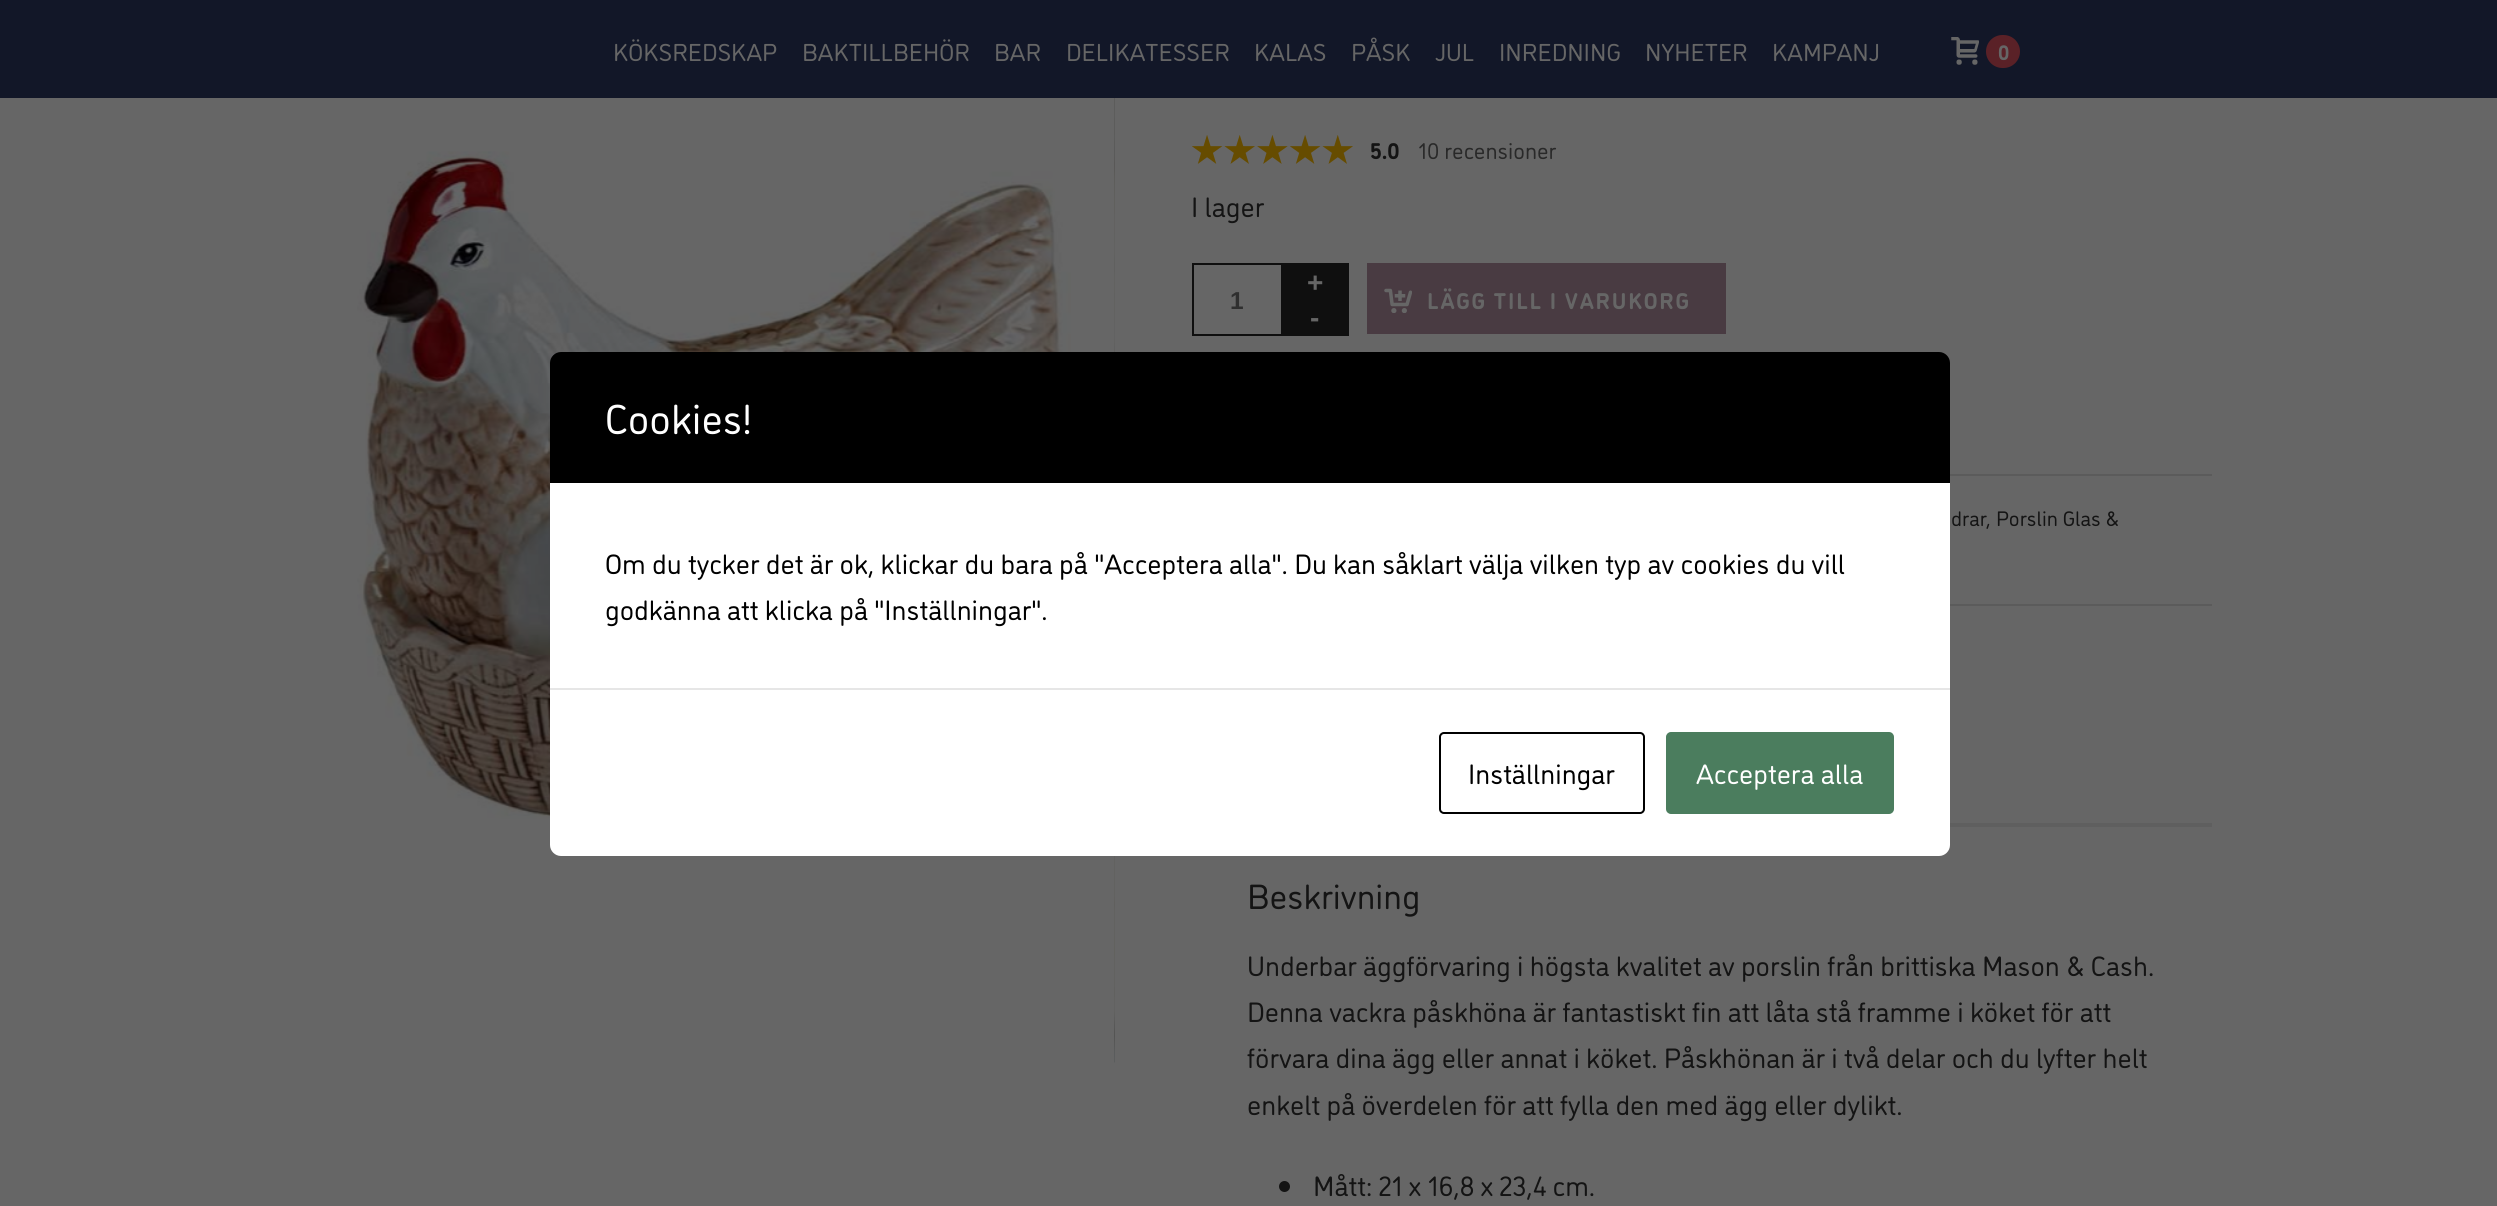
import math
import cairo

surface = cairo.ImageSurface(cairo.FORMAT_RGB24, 2497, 1206)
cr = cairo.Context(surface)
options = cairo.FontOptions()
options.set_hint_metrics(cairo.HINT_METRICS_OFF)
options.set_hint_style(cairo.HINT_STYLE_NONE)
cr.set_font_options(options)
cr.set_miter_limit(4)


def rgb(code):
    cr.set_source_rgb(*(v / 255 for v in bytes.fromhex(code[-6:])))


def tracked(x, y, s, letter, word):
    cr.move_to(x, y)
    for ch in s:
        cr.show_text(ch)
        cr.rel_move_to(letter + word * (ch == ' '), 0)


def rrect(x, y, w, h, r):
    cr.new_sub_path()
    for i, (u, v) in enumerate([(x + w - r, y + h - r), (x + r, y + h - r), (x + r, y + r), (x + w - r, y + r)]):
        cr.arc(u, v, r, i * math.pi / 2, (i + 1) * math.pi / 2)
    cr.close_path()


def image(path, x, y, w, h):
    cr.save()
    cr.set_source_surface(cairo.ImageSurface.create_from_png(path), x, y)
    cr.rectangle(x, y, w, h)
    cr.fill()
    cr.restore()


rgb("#666666")
cr.paint()
rgb("#121728")
cr.rectangle(0, 0, 2497, 98)
cr.fill()
image("img/1.png", 1951, 37, 28, 28)
rgb("#5a2127")
rrect(1986, 35, 34, 33, 16.5)
cr.fill()
image("img/2.png", 357, 151, 714, 685)
image("img/3.png", 1114, 98, 1, 965)
image("img/4.png", 1192, 135, 161, 29)
cr.rectangle(1193, 264, 89, 71)
rgb("#0f0f0f")
cr.stroke()
cr.rectangle(1283, 263, 66, 73)
cr.fill()
rgb("#493b42")
cr.rectangle(1367, 263, 359, 71)
cr.fill()
image("img/5.png", 1384, 288, 28, 25)
for x, y, w, h, color in [
    (1950, 474, 262, 2, "#5b5b5b"),
    (1950, 604, 262, 2, "#5b5b5b"),
    (1950, 823, 262, 4, "#5f5f5f"),
]:
    rgb(color)
    cr.rectangle(x, y, w, h)
    cr.fill()
rgb("#141414")
cr.arc(1284.5, 1186.5, 5.5, 0, 2 * math.pi)
cr.fill()
rgb("#000000")
cr.new_path()
cr.move_to(561, 352)
cr.line_to(1939, 352)
cr.curve_to(1945, 352, 1950, 357, 1950, 363)
cr.line_to(1950, 483)
cr.line_to(550, 483)
cr.line_to(550, 363)
cr.curve_to(550, 357, 555, 352, 561, 352)
cr.close_path()
cr.fill()
rgb("#ffffff")
cr.rectangle(550, 483, 1400, 205)
cr.fill()
cr.new_path()
cr.move_to(550, 688)
cr.line_to(1950, 688)
cr.line_to(1950, 845)
cr.curve_to(1950, 851, 1945, 856, 1939, 856)
cr.line_to(561, 856)
cr.curve_to(555, 856, 550, 851, 550, 845)
cr.close_path()
cr.fill()
rgb("#e6e6e6")
cr.rectangle(550, 688, 1400, 2)
cr.fill()
rrect(1440, 733, 204, 80, 4)
rgb("#000000")
cr.stroke()
rgb("#4b7d5e")
rrect(1667, 733, 226, 80, 4)
cr.fill_preserve()
cr.stroke()
cr.select_font_face("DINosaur")
cr.set_font_size(24.5)
rgb("#666666")
for x, y, s in [
    (613, 61, "KÖKSREDSKAP"),
    (802, 61, "BAKTILLBEHÖR"),
    (994, 61, "BAR"),
    (1066, 61, "DELIKATESSER"),
    (1254, 61, "KALAS"),
    (1351, 61, "PÅSK"),
    (1435, 61, "JUL"),
    (1499, 61, "INREDNING"),
    (1645, 61, "NYHETER"),
    (1772, 61, "KAMPANJ"),
]:
    cr.move_to(x, y)
    cr.show_text(s)
cr.select_font_face("DINosaur", cairo.FONT_SLANT_NORMAL, cairo.FONT_WEIGHT_BOLD)
cr.set_font_size(21)
cr.move_to(1998, 60)
cr.show_text("0")
cr.set_font_size(22.75)
rgb("#141414")
cr.move_to(1370, 159)
cr.show_text("5.0")
cr.select_font_face("DINosaur")
rgb("#292929")
cr.move_to(1418, 159)
cr.show_text("10 recensioner")
cr.set_font_size(28)
rgb("#141414")
cr.move_to(1191, 217)
cr.show_text("I lager")
cr.select_font_face("Liberation Sans", cairo.FONT_SLANT_NORMAL, cairo.FONT_WEIGHT_BOLD)
rgb("#666666")
cr.move_to(1307, 292)
cr.show_text("+")
cr.set_font_size(24.5)
rgb("#2f2f2f")
cr.move_to(1230, 309)
cr.show_text("1")
cr.set_font_size(28)
rgb("#666666")
cr.move_to(1310, 327)
cr.show_text("-")
cr.select_font_face("DINosaur", cairo.FONT_SLANT_NORMAL, cairo.FONT_WEIGHT_BOLD)
cr.set_font_size(22.75)
tracked(1427, 309, "LÄGG TILL I VARUKORG", 1.75, 0)
cr.select_font_face("DINosaur")
cr.set_font_size(21)
rgb("#141414")
for x, y, s in [
    (1951, 526, "drar"),
    (1986, 526, ","),
    (1996, 526, "Porslin Glas &"),
]:
    cr.move_to(x, y)
    cr.show_text(s)
cr.set_font_size(35)
cr.move_to(1247, 909)
cr.show_text("Beskrivning")
cr.set_font_size(28)
for x, y, s in [
    (1247, 976, "Underbar äggförvaring i högsta kvalitet av porslin från brittiska Mason & Cash."),
    (1247, 1022, "Denna vackra påskhöna är fantastiskt fin att låta stå framme i köket för att"),
    (1247, 1068, "förvara dina ägg eller annat i köket. Påskhönan är i två delar och du lyfter helt"),
    (1247, 1115, "enkelt på överdelen för att fylla den med ägg eller dylikt."),
    (1313, 1196, "Mått: 21 x 16,8 x 23,4 cm."),
]:
    cr.move_to(x, y)
    cr.show_text(s)
cr.set_font_size(42)
rgb("#ffffff")
cr.move_to(605, 434)
cr.show_text("Cookies!")
cr.set_font_size(28)
rgb("#000000")
for x, y, s in [
    (605, 574, "Om du tycker det är ok, klickar du bara på \"Acceptera alla\". Du kan såklart välja vilken typ av cookies du vill"),
    (605, 620, "godkänna att klicka på \"Inställningar\"."),
    (1468, 784, "Inställningar"),
]:
    cr.move_to(x, y)
    cr.show_text(s)
rgb("#ffffff")
cr.move_to(1696, 784)
cr.show_text("Acceptera alla")
surface.write_to_png("page.png")
